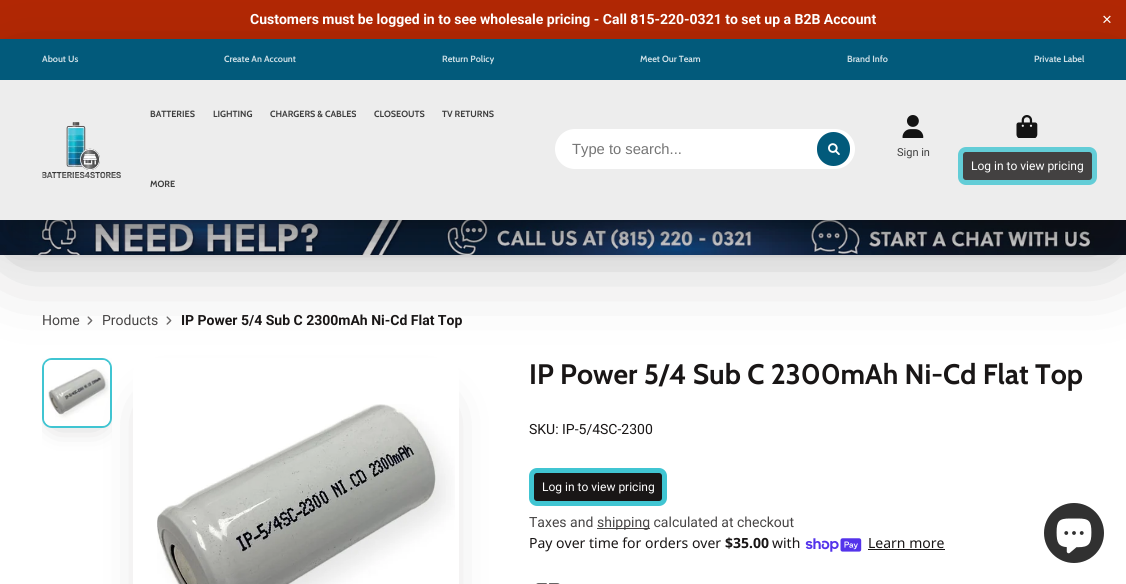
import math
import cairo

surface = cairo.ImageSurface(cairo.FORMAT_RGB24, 1126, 584)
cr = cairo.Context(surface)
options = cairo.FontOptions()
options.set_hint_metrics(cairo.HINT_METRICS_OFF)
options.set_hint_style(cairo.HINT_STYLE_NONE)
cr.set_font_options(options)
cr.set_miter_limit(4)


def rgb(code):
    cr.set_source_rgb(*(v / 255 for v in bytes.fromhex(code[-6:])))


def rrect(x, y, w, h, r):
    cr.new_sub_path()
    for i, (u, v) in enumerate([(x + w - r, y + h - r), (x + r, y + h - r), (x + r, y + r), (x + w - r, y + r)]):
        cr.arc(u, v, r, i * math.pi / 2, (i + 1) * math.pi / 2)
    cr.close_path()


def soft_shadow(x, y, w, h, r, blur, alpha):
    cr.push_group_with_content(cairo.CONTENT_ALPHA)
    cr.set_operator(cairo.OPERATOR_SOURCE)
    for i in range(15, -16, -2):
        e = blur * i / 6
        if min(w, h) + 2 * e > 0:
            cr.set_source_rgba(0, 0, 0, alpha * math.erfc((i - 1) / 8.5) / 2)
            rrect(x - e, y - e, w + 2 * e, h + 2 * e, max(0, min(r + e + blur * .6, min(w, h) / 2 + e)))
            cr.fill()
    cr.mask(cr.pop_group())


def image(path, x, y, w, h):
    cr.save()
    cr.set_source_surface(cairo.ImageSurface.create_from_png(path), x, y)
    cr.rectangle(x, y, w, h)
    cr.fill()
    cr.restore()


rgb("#ffffff")
cr.paint()
rgb("#b12704")
cr.rectangle(0, 0, 1126, 39)
cr.fill()
image("img/5.png", 0, 220, 1126, 35)
rgb("#0b0a0a")
soft_shadow(14, 79, 1098, 153, 0, 19, 0.4)
image("img/6.png", 87, 316, 6, 9)
image("img/6.png", 166, 316, 6, 9)
cr.save()
cr.rectangle(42, 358, 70, 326)
cr.clip()
soft_shadow(56, 379, 42, 42, 0, 14, 0.3)
cr.restore()
rrect(43, 359, 68, 68, 9)
rgb("#40c5d2")
cr.stroke()
image("img/7.png", 44, 360, 66, 66)
rgb("#0b0a0a")
soft_shadow(14, 97, 1098, 153, 0, 44, 0.3)
rgb("#025a7b")
cr.rectangle(0, 39, 1126, 41)
cr.fill()
rgb("#ededed")
cr.rectangle(0, 80, 1126, 140)
cr.fill()
image("img/1.png", 42, 122, 79, 56)
rgb("#ffffff")
rrect(555, 129, 300, 40, 20)
cr.fill()
rgb("#025a7b")
rrect(817, 132, 33, 34, 16.5)
cr.fill()
image("img/2.png", 828, 143, 12, 12)
image("img/3.png", 902, 115, 22, 23)
image("img/4.png", 1016, 115, 22, 23)
rgb("#434141")
rrect(960.5, 149.5, 134, 33, 5.5)
cr.fill_preserve()
rgb("#63cdd7")
cr.set_line_width(5)
cr.stroke()
cr.save()
cr.set_fill_rule(cairo.FILL_RULE_EVEN_ODD)
cr.new_path()
cr.move_to(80, 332)
cr.line_to(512, 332)
cr.line_to(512, 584)
cr.line_to(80, 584)
cr.close_path()
cr.move_to(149, 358)
cr.line_to(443, 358)
cr.curve_to(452, 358, 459, 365, 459, 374)
cr.line_to(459, 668)
cr.curve_to(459, 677, 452, 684, 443, 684)
cr.line_to(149, 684)
cr.curve_to(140, 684, 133, 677, 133, 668)
cr.line_to(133, 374)
cr.curve_to(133, 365, 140, 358, 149, 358)
cr.close_path()
cr.clip()
rgb("#0b0a0a")
soft_shadow(159, 411, 274, 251, 0, 26, 0.3)
cr.restore()
image("img/8.png", 157, 404, 298, 180)
rgb("#191616")
rrect(531.5, 470.5, 133, 33, 5.5)
cr.fill_preserve()
rgb("#40c5d2")
cr.stroke()
rgb("#474545")
cr.rectangle(597, 528, 53, 1)
cr.fill()
image("img/9.png", 805, 538, 57, 14)
rgb("#191616")
cr.rectangle(868, 549, 77, 1)
cr.fill()
image("img/10.png", 536, 583, 24, 1)
rgb("#313131")
cr.arc(1074, 533, 30, 0, 2 * math.pi)
cr.fill()
image("img/11.png", 1056, 518, 36, 36)
cr.select_font_face("Roboto", cairo.FONT_SLANT_NORMAL, cairo.FONT_WEIGHT_BOLD)
cr.set_font_size(14)
rgb("#ffffff")
cr.move_to(250, 24)
cr.show_text("Customers must be logged in to see wholesale pricing - Call 815-220-0321 to set up a B2B Account")
cr.select_font_face("Liberation Sans")
cr.set_font_size(17)
cr.move_to(1102, 25)
cr.show_text("×")
cr.select_font_face("Cabin", cairo.FONT_SLANT_NORMAL, cairo.FONT_WEIGHT_BOLD)
cr.set_font_size(9)
rgb("#ccdee5")
for x, y, s in [
    (42, 62, "About Us"),
    (224, 62, "Create An Account"),
    (442, 62, "Return Policy"),
    (640, 62, "Meet Our Team"),
    (847, 62, "Brand Info"),
    (1034, 62, "Private Label"),
]:
    cr.move_to(x, y)
    cr.show_text(s)
rgb("#3f3f3f")
for x, y, s in [
    (150, 117, "BATTERIES"),
    (213, 117, "LIGHTING"),
    (270, 117, "CHARGERS & CABLES"),
    (374, 117, "CLOSEOUTS"),
    (442, 117, "TV RETURNS"),
    (150, 187, "MORE"),
]:
    cr.move_to(x, y)
    cr.show_text(s)
cr.select_font_face("Liberation Sans")
cr.set_font_size(14.75)
rgb("#757575")
cr.move_to(572, 154)
cr.show_text("Type to search...")
cr.select_font_face("Roboto")
cr.set_font_size(11)
rgb("#3f3f3f")
cr.move_to(897, 156)
cr.show_text("Sign in")
cr.set_font_size(12)
rgb("#ffffff")
cr.move_to(971, 170)
cr.show_text("Log in to view pricing")
cr.set_font_size(14)
rgb("#474545")
cr.move_to(42, 325)
cr.show_text("Home")
cr.move_to(102, 325)
cr.show_text("Products")
cr.select_font_face("Roboto", cairo.FONT_SLANT_NORMAL, cairo.FONT_WEIGHT_BOLD)
rgb("#191616")
cr.move_to(181, 325)
cr.show_text("IP Power 5/4 Sub C 2300mAh Ni-Cd Flat Top")
cr.select_font_face("Cabin", cairo.FONT_SLANT_NORMAL, cairo.FONT_WEIGHT_BOLD)
cr.set_font_size(28.2)
cr.move_to(529, 384)
cr.show_text("IP Power 5/4 Sub C 2300mAh Ni-Cd Flat Top")
cr.select_font_face("Roboto")
cr.set_font_size(14)
cr.move_to(529, 434)
cr.show_text("SKU: IP-5/4SC-2300")
cr.set_font_size(12)
rgb("#ffffff")
cr.move_to(542, 491)
cr.show_text("Log in to view pricing")
cr.set_font_size(14)
rgb("#474545")
cr.move_to(529, 527)
cr.show_text("Taxes and")
cr.move_to(597, 527)
cr.show_text("shipping calculated at checkout")
cr.select_font_face("Noto Sans")
rgb("#191616")
cr.move_to(529, 548)
cr.show_text("Pay over time for orders over")
cr.select_font_face("Noto Sans", cairo.FONT_SLANT_NORMAL, cairo.FONT_WEIGHT_BOLD)
cr.move_to(725, 548)
cr.show_text("$35.00")
cr.select_font_face("Noto Sans")
cr.move_to(772, 548)
cr.show_text("with")
cr.move_to(868, 548)
cr.show_text("Learn more")
surface.write_to_png("page.png")
